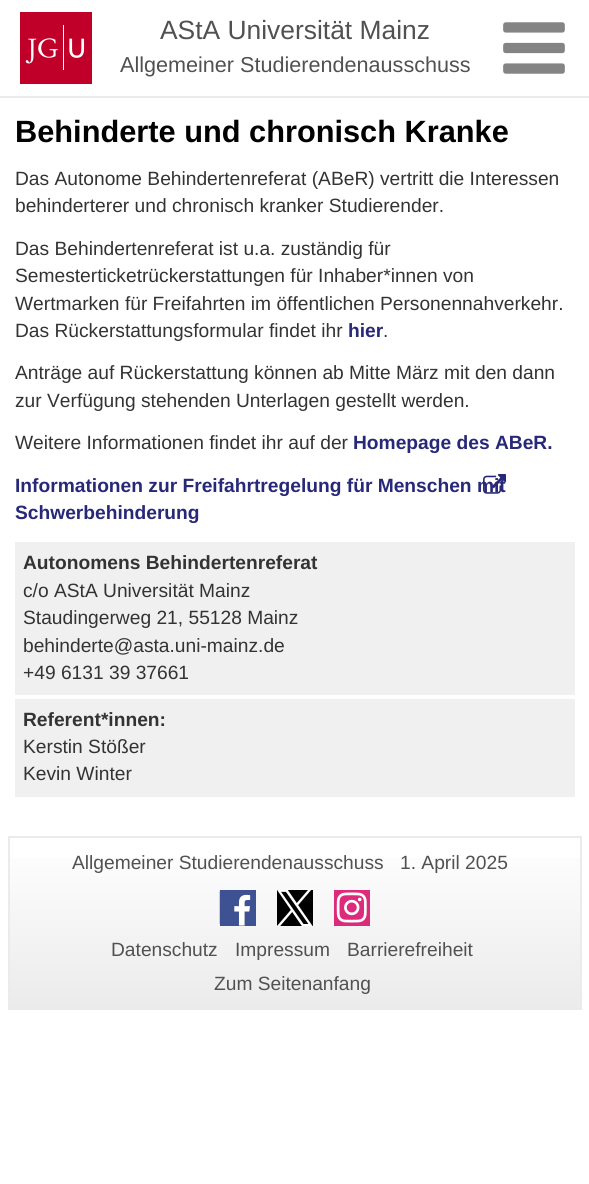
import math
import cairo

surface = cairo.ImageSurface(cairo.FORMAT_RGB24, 589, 1184)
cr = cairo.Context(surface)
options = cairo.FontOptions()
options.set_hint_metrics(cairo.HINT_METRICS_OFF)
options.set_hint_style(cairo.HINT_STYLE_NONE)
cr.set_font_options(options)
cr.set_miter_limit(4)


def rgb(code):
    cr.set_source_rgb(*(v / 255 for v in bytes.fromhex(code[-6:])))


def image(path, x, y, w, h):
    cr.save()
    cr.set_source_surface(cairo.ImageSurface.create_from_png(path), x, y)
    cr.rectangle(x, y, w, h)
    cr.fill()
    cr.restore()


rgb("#ffffff")
cr.paint()
rgb("#ebebeb")
cr.rectangle(0, 96, 589, 2)
cr.fill()
image("img/1.png", 20, 12, 72, 72)
image("img/2.png", 503, 22, 62, 52)
image("img/3.png", 483, 474, 23, 20)
rgb("#f0f0f0")
cr.rectangle(15, 542, 560, 153)
cr.fill()
cr.rectangle(15, 699, 560, 98)
cr.fill()
gradient = cairo.LinearGradient(295, 1008, 295, 837)
gradient.add_color_stop_rgba(0, 0.922, 0.922, 0.922, 1)
gradient.add_color_stop_rgba(1, 1, 1, 1, 1)
cr.set_source(gradient)
cr.rectangle(10, 858, 570, 150)
cr.fill()
cr.rectangle(9, 837, 572, 172)
rgb("#ebebeb")
cr.stroke()
image("img/4.png", 219, 890, 37, 36)
image("img/5.png", 277, 890, 36, 36)
image("img/6.png", 334, 890, 36, 36)
cr.select_font_face("Liberation Sans")
cr.set_font_size(26.4)
rgb("#515151")
cr.move_to(160, 39)
cr.show_text("AStA Universität Mainz")
cr.set_font_size(21.6)
cr.move_to(120, 72)
cr.show_text("Allgemeiner Studierendenausschuss")
cr.select_font_face("Liberation Sans", cairo.FONT_SLANT_NORMAL, cairo.FONT_WEIGHT_BOLD)
cr.set_font_size(30.75)
rgb("#000000")
cr.move_to(15, 142)
cr.show_text("Behinderte und chronisch Kranke")
cr.select_font_face("Liberation Sans")
cr.set_font_size(19.2)
rgb("#333333")
for x, y, s in [
    (15, 185, "Das Autonome Behindertenreferat (ABeR) vertritt die Interessen"),
    (15, 212, "behinderterer und chronisch kranker Studierender."),
    (15, 255, "Das Behindertenreferat ist u.a. zuständig für"),
    (15, 282, "Semesterticketrückerstattungen für Inhaber*innen von"),
    (15, 310, "Wertmarken für Freifahrten im öffentlichen Personennahverkehr."),
    (15, 337, "Das Rückerstattungsformular findet ihr"),
]:
    cr.move_to(x, y)
    cr.show_text(s)
cr.select_font_face("Liberation Sans", cairo.FONT_SLANT_NORMAL, cairo.FONT_WEIGHT_BOLD)
rgb("#282879")
cr.move_to(348, 337)
cr.show_text("hier")
cr.select_font_face("Liberation Sans")
rgb("#333333")
for x, y, s in [
    (383, 337, "."),
    (15, 379, "Anträge auf Rückerstattung können ab Mitte März mit den dann"),
    (15, 407, "zur Verfügung stehenden Unterlagen gestellt werden."),
    (15, 449, "Weitere Informationen findet ihr auf der"),
]:
    cr.move_to(x, y)
    cr.show_text(s)
cr.select_font_face("Liberation Sans", cairo.FONT_SLANT_NORMAL, cairo.FONT_WEIGHT_BOLD)
rgb("#282879")
for x, y, s in [
    (353, 449, "Homepage des ABeR."),
    (15, 492, "Informationen zur Freifahrtregelung für Menschen mit"),
    (15, 519, "Schwerbehinderung"),
]:
    cr.move_to(x, y)
    cr.show_text(s)
rgb("#333333")
cr.move_to(23, 569)
cr.show_text("Autonomens Behindertenreferat")
cr.select_font_face("Liberation Sans")
for x, y, s in [
    (23, 597, "c/o AStA Universität Mainz"),
    (23, 624, "Staudingerweg 21, 55128 Mainz"),
    (23, 652, "behinderte@asta.uni-mainz.de"),
    (23, 679, "+49 6131 39 37661"),
]:
    cr.move_to(x, y)
    cr.show_text(s)
cr.select_font_face("Liberation Sans", cairo.FONT_SLANT_NORMAL, cairo.FONT_WEIGHT_BOLD)
cr.move_to(23, 726)
cr.show_text("Referent*innen:")
cr.select_font_face("Liberation Sans")
cr.move_to(23, 753)
cr.show_text("Kerstin Stößer")
cr.move_to(23, 780)
cr.show_text("Kevin Winter")
rgb("#515151")
for x, y, s in [
    (72, 869, "Allgemeiner Studierendenausschuss"),
    (400, 869, "1. April 2025"),
    (111, 956, "Datenschutz"),
    (235, 956, "Impressum"),
    (347, 956, "Barrierefreiheit"),
    (214, 990, "Zum Seitenanfang"),
]:
    cr.move_to(x, y)
    cr.show_text(s)
surface.write_to_png("page.png")
